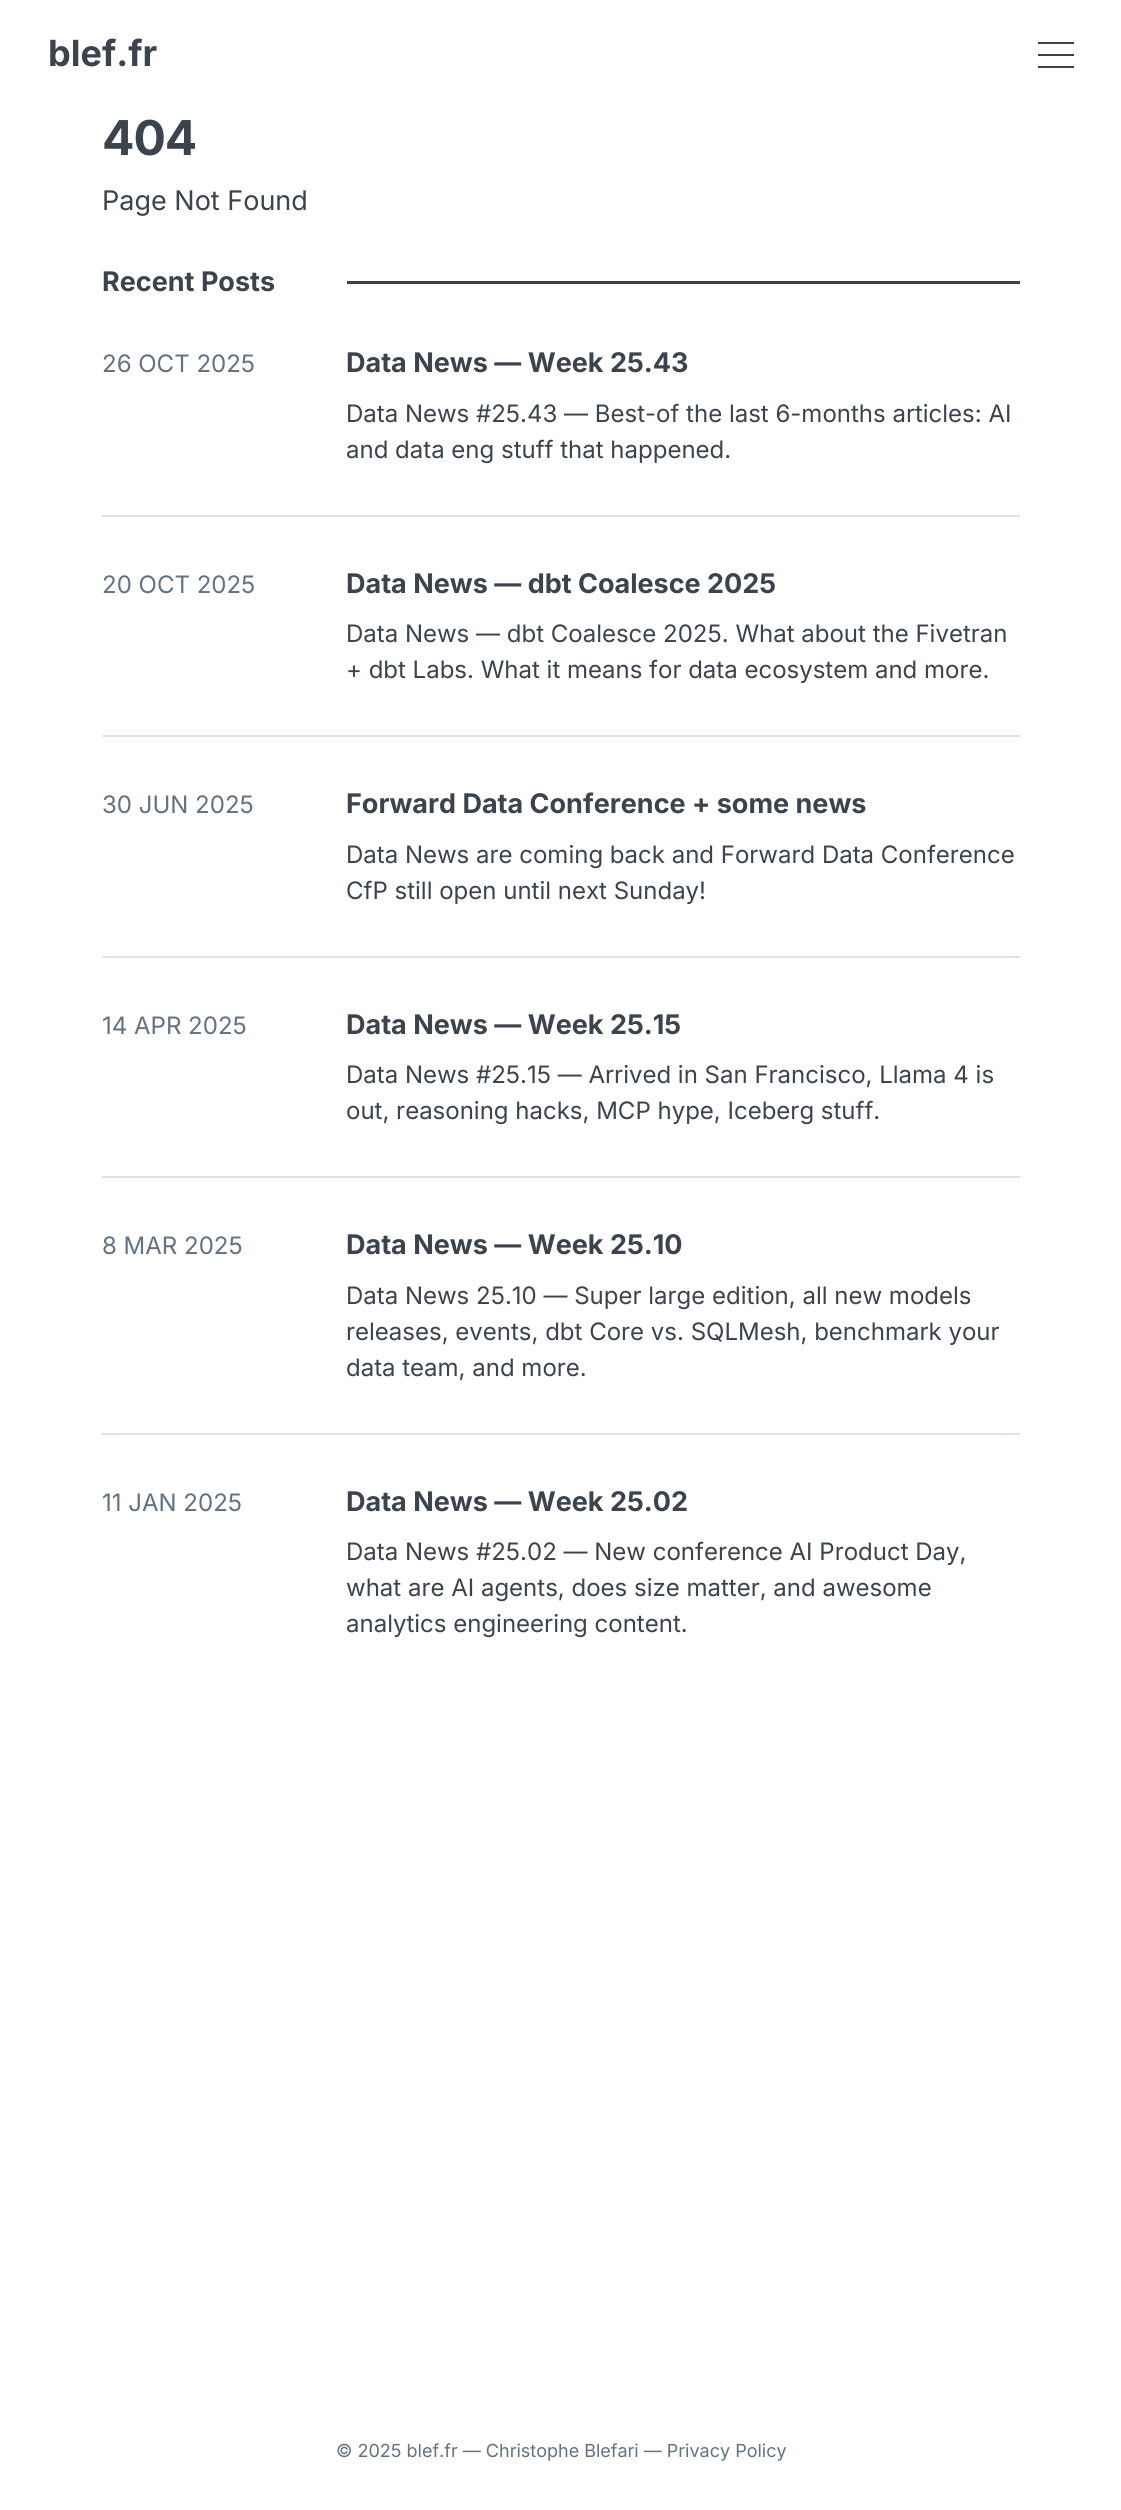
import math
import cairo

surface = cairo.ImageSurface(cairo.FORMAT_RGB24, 1121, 2510)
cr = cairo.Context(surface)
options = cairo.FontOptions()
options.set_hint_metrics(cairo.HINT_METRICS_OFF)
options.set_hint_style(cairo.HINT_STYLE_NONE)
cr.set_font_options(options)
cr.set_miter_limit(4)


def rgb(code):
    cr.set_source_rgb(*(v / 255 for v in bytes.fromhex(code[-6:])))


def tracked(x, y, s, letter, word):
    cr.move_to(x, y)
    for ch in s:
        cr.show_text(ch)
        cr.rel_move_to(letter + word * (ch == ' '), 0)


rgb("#ffffff")
cr.paint()
for x, y, w, h, color in [
    (1038, 42, 36, 2, "#3c434c"),
    (1038, 54, 36, 2, "#3c434c"),
    (1038, 66, 36, 2, "#3c434c"),
    (347, 281, 673, 3, "#3c434c"),
    (102, 515, 918, 2, "#dfe3e9"),
    (102, 735, 918, 2, "#dfe3e9"),
    (102, 956, 918, 2, "#dfe3e9"),
    (102, 1176, 918, 2, "#dfe3e9"),
    (102, 1433, 918, 2, "#dfe3e9"),
]:
    rgb(color)
    cr.rectangle(x, y, w, h)
    cr.fill()
cr.select_font_face("Inter", cairo.FONT_SLANT_NORMAL, cairo.FONT_WEIGHT_BOLD)
cr.set_font_size(36)
rgb("#3c434c")
cr.move_to(48, 66)
cr.show_text("blef.fr")
cr.set_font_size(48)
tracked(102, 155, "404", -1, 0)
cr.select_font_face("Inter")
cr.set_font_size(27)
cr.move_to(102, 210)
cr.show_text("Page Not Found")
cr.select_font_face("Inter", cairo.FONT_SLANT_NORMAL, cairo.FONT_WEIGHT_BOLD)
cr.move_to(102, 291)
cr.show_text("Recent Posts")
cr.select_font_face("Inter")
cr.set_font_size(24)
rgb("#647180")
cr.move_to(102, 372)
cr.show_text("26 OCT 2025")
cr.select_font_face("Inter", cairo.FONT_SLANT_NORMAL, cairo.FONT_WEIGHT_BOLD)
cr.set_font_size(27)
rgb("#3c434c")
cr.move_to(346, 372)
cr.show_text("Data News — Week 25.43")
cr.select_font_face("Inter")
cr.set_font_size(24)
cr.move_to(346, 422)
cr.show_text("Data News #25.43 — Best-of the last 6-months articles: AI")
cr.move_to(346, 458)
cr.show_text("and data eng stuff that happened.")
rgb("#647180")
cr.move_to(102, 593)
cr.show_text("20 OCT 2025")
cr.select_font_face("Inter", cairo.FONT_SLANT_NORMAL, cairo.FONT_WEIGHT_BOLD)
cr.set_font_size(27)
rgb("#3c434c")
cr.move_to(346, 593)
cr.show_text("Data News — dbt Coalesce 2025")
cr.select_font_face("Inter")
cr.set_font_size(24)
cr.move_to(346, 642)
cr.show_text("Data News — dbt Coalesce 2025. What about the Fivetran")
cr.move_to(346, 678)
cr.show_text("+ dbt Labs. What it means for data ecosystem and more.")
rgb("#647180")
cr.move_to(102, 813)
cr.show_text("30 JUN 2025")
cr.select_font_face("Inter", cairo.FONT_SLANT_NORMAL, cairo.FONT_WEIGHT_BOLD)
cr.set_font_size(27)
rgb("#3c434c")
cr.move_to(346, 813)
cr.show_text("Forward Data Conference + some news")
cr.select_font_face("Inter")
cr.set_font_size(24)
cr.move_to(346, 863)
cr.show_text("Data News are coming back and Forward Data Conference")
cr.move_to(346, 899)
cr.show_text("CfP still open until next Sunday!")
rgb("#647180")
cr.move_to(102, 1034)
cr.show_text("14 APR 2025")
cr.select_font_face("Inter", cairo.FONT_SLANT_NORMAL, cairo.FONT_WEIGHT_BOLD)
cr.set_font_size(27)
rgb("#3c434c")
cr.move_to(346, 1034)
cr.show_text("Data News — Week 25.15")
cr.select_font_face("Inter")
cr.set_font_size(24)
cr.move_to(346, 1083)
cr.show_text("Data News #25.15 — Arrived in San Francisco, Llama 4 is")
cr.move_to(346, 1119)
cr.show_text("out, reasoning hacks, MCP hype, Iceberg stuff.")
rgb("#647180")
cr.move_to(102, 1254)
cr.show_text("8 MAR 2025")
cr.select_font_face("Inter", cairo.FONT_SLANT_NORMAL, cairo.FONT_WEIGHT_BOLD)
cr.set_font_size(27)
rgb("#3c434c")
cr.move_to(346, 1254)
cr.show_text("Data News — Week 25.10")
cr.select_font_face("Inter")
cr.set_font_size(24)
for x, y, s in [
    (346, 1304, "Data News 25.10 — Super large edition, all new models"),
    (346, 1340, "releases, events, dbt Core vs. SQLMesh, benchmark your"),
    (346, 1376, "data team, and more."),
]:
    cr.move_to(x, y)
    cr.show_text(s)
rgb("#647180")
cr.move_to(102, 1511)
cr.show_text("11 JAN 2025")
cr.select_font_face("Inter", cairo.FONT_SLANT_NORMAL, cairo.FONT_WEIGHT_BOLD)
cr.set_font_size(27)
rgb("#3c434c")
cr.move_to(346, 1511)
cr.show_text("Data News — Week 25.02")
cr.select_font_face("Inter")
cr.set_font_size(24)
for x, y, s in [
    (346, 1560, "Data News #25.02 — New conference AI Product Day,"),
    (346, 1596, "what are AI agents, does size matter, and awesome"),
    (346, 1632, "analytics engineering content."),
]:
    cr.move_to(x, y)
    cr.show_text(s)
cr.set_font_size(18)
rgb("#647180")
cr.move_to(336, 2457)
cr.show_text("© 2025 blef.fr — Christophe Blefari — Privacy Policy")
surface.write_to_png("page.png")
